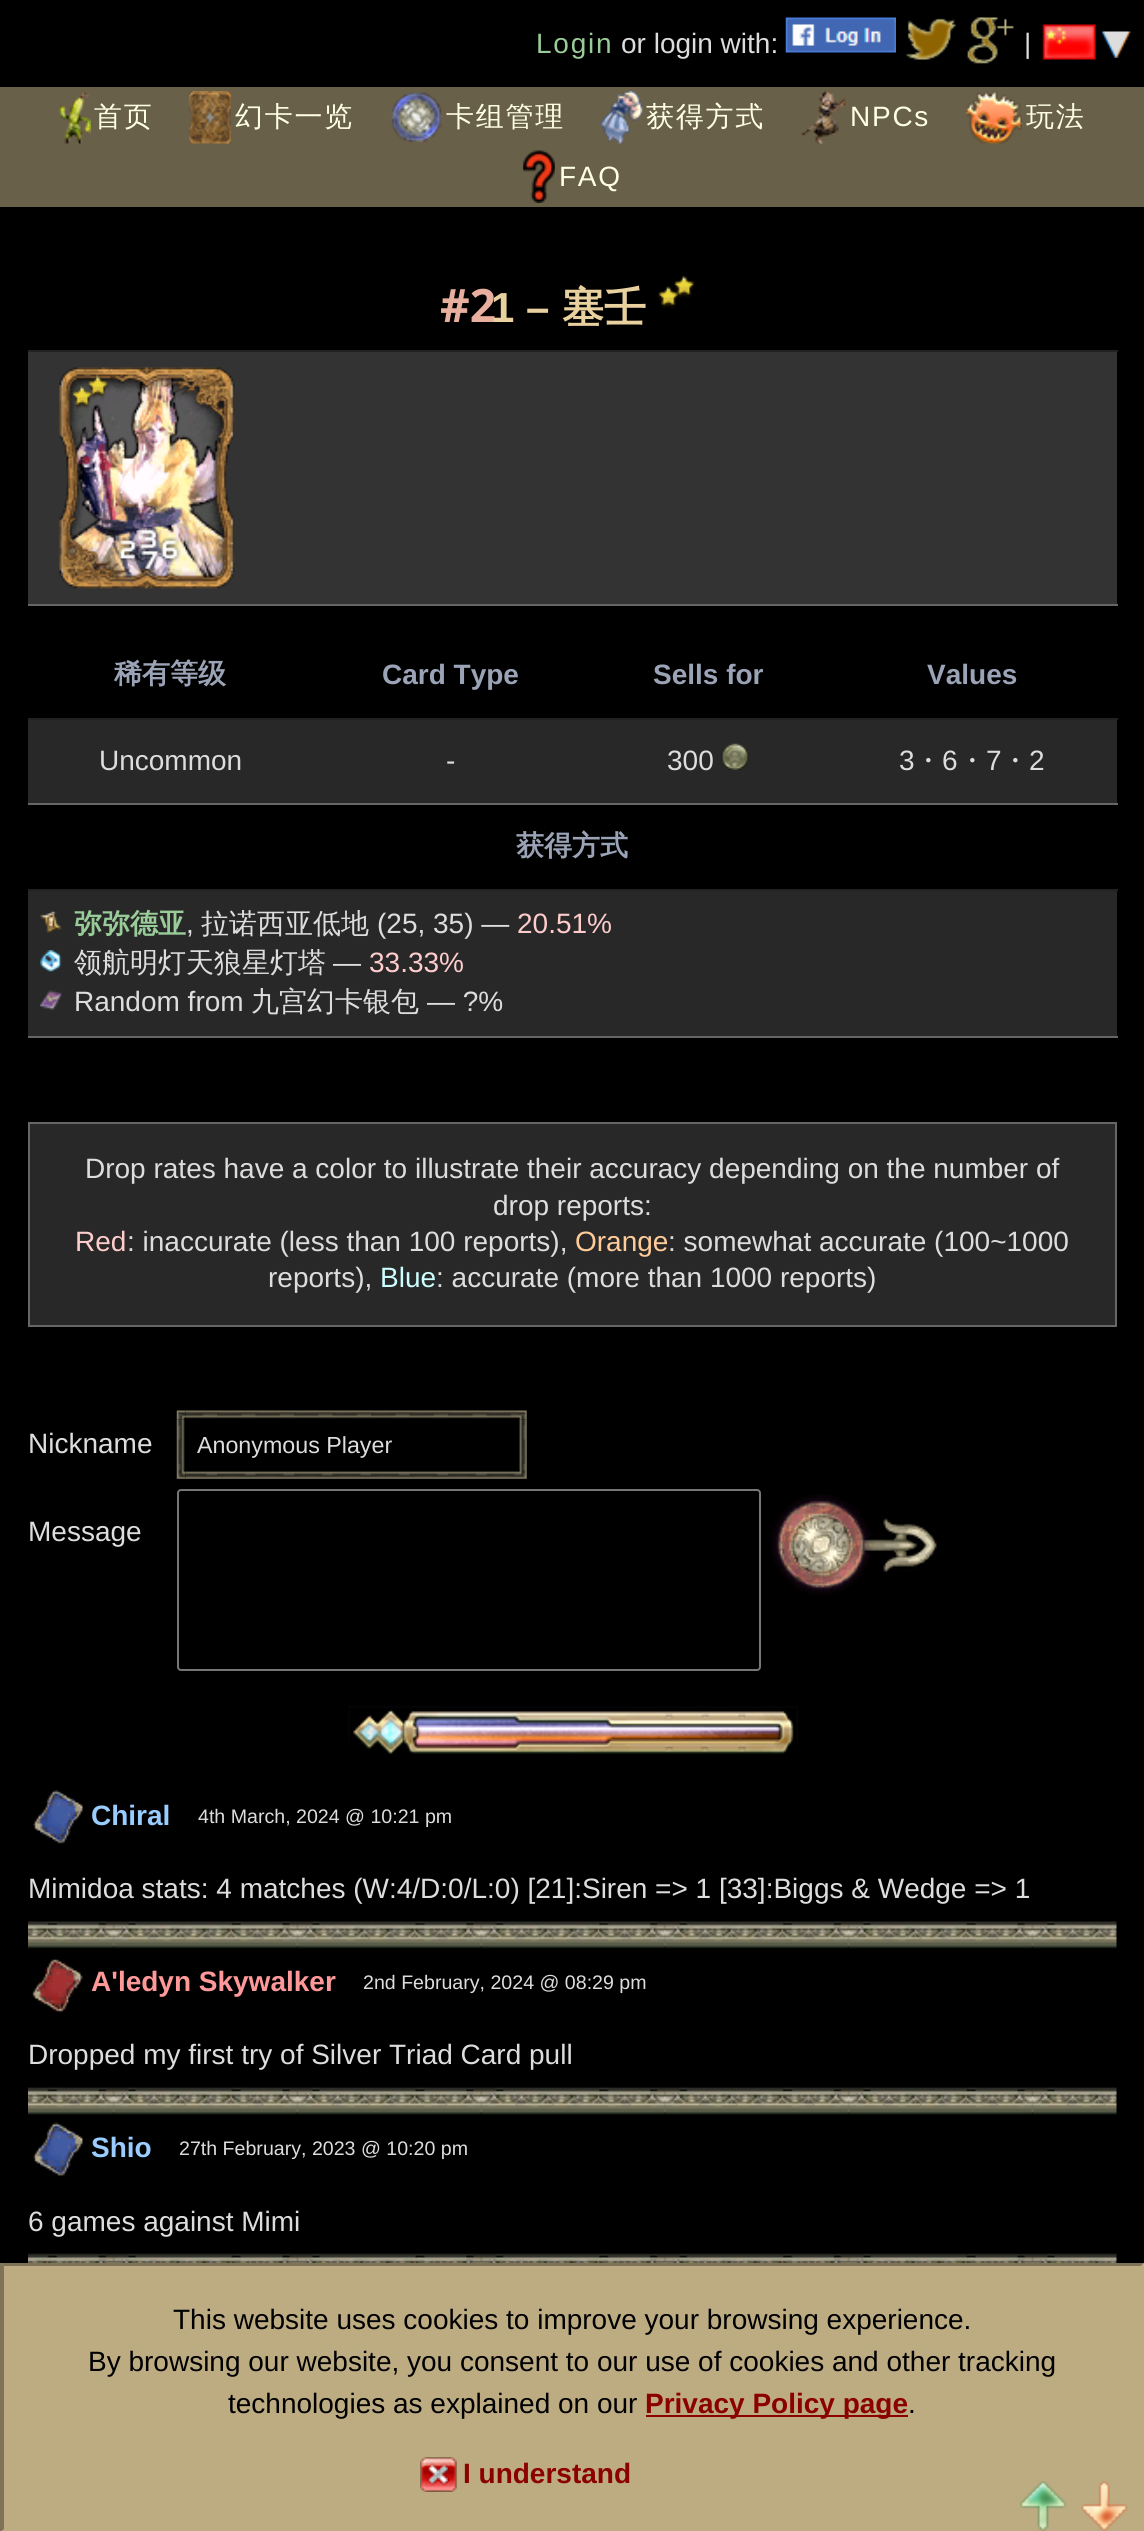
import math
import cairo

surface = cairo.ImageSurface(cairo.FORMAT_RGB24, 1144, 2531)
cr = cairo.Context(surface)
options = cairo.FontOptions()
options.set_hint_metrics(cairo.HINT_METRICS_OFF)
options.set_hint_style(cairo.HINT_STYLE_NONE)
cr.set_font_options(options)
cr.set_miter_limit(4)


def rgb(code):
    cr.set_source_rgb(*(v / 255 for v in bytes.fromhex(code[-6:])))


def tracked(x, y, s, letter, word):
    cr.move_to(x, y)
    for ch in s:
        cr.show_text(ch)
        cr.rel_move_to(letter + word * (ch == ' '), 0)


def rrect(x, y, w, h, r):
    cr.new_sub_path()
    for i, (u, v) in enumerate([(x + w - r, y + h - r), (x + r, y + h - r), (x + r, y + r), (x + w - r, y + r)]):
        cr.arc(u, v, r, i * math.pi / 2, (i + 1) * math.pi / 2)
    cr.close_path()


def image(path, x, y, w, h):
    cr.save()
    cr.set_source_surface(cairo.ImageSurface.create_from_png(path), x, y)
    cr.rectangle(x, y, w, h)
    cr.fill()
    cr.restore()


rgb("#000000")
cr.paint()
image("img/1.png", 785, 17, 111, 36)
image("img/2.png", 906, 18, 50, 42)
image("img/3.png", 967, 17, 47, 47)
image("img/4.png", 1100, 31, 31, 27)
image("img/5.png", 1042, 24, 54, 36)
rgb("#696049")
cr.rectangle(0, 87, 1144, 120)
cr.fill()
image("img/6.png", 59, 91, 32, 53)
image("img/7.png", 189, 91, 42, 53)
image("img/8.png", 391, 92, 51, 51)
image("img/9.png", 600, 91, 43, 53)
image("img/10.png", 801, 91, 46, 53)
image("img/11.png", 966, 91, 56, 53)
image("img/12.png", 523, 150, 32, 53)
rgb("#222222")
cr.rectangle(28, 350, 1090, 2)
cr.fill()
image("img/13.png", 658, 276, 37, 33)
rgb("#333333")
cr.rectangle(28, 352, 1089, 252)
cr.fill()
image("img/14.png", 59, 367, 176, 222)
image("img/15.png", 59, 367, 176, 222)
image("img/16.png", 72, 376, 37, 34)
image("img/18.png", 137, 527, 23, 25)
image("img/17.png", 117, 537, 22, 25)
image("img/19.png", 159, 537, 22, 25)
image("img/20.png", 139, 547, 22, 25)
for x, y, w, h, color in [
    (28, 604, 1090, 2, "#666666"),
    (28, 718, 1090, 2, "#222222"),
    (28, 720, 1089, 83, "#282828"),
]:
    rgb(color)
    cr.rectangle(x, y, w, h)
    cr.fill()
image("img/21.png", 721, 743, 28, 27)
for x, y, w, h, color in [
    (28, 803, 1090, 2, "#666666"),
    (28, 889, 1090, 2, "#222222"),
    (28, 891, 1089, 145, "#282828"),
    (28, 1036, 1090, 2, "#666666"),
]:
    rgb(color)
    cr.rectangle(x, y, w, h)
    cr.fill()
image("img/22.png", 40, 911, 22, 22)
image("img/23.png", 40, 950, 22, 22)
image("img/24.png", 40, 990, 22, 21)
rgb("#282828")
cr.rectangle(29, 1123, 1087, 203)
cr.fill_preserve()
rgb("#666666")
cr.stroke()
image("img/25.png", 176, 1410, 351, 69)
rrect(178, 1490, 582, 180, 3)
rgb("#767676")
cr.stroke()
image("img/26.png", 770, 1494, 167, 101)
image("img/27.png", 348, 1706, 450, 48)
image("img/28.png", 28, 1921, 1089, 28)
image("img/29.png", 33, 1789, 52, 55)
image("img/30.png", 28, 2087, 1089, 28)
image("img/31.png", 31, 1959, 52, 54)
image("img/32.png", 28, 2253, 1089, 10)
image("img/33.png", 33, 2122, 51, 54)
rgb("#bdab82")
cr.rectangle(0, 2263, 1144, 268)
cr.fill()
rgb("#7e7257")
cr.new_path()
cr.move_to(0, 2263)
cr.line_to(1144, 2263)
cr.line_to(1141, 2266)
cr.line_to(4, 2266)
cr.close_path()
cr.fill()
rgb("#bdab82")
cr.new_path()
cr.move_to(1144, 2263)
cr.line_to(1144, 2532)
cr.line_to(1141, 2529)
cr.line_to(1141, 2266)
cr.close_path()
cr.fill()
rgb("#7e7257")
cr.new_path()
cr.move_to(0, 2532)
cr.line_to(0, 2263)
cr.line_to(4, 2266)
cr.line_to(4, 2529)
cr.close_path()
cr.fill()
rgb("#8b0000")
cr.rectangle(646, 2415, 262, 2)
cr.fill()
image("img/34.png", 420, 2457, 37, 35)
image("img/35.png", 1020, 2481, 47, 50)
image("img/36.png", 1081, 2481, 47, 50)
cr.select_font_face("Liberation Sans")
cr.set_font_size(28)
rgb("#99cc99")
tracked(536, 53, "Login", 1.75, 0)
rgb("#dddddd")
cr.move_to(621, 53)
cr.show_text("or login with:")
cr.move_to(1024, 53)
cr.show_text("|")
cr.select_font_face("WenQuanYi Zen Hei Medium")
rgb("#ffffe6")
for x, y, s in [
    (94, 126, "首页"),
    (235, 126, "幻卡一览"),
    (446, 126, "卡组管理"),
    (646, 126, "获得方式"),
]:
    tracked(x, y, s, 1.75, 0)
cr.select_font_face("Liberation Sans")
tracked(850, 126, "NPCs", 1.75, 0)
cr.select_font_face("WenQuanYi Zen Hei Medium")
tracked(1026, 126, "玩法", 1.75, 0)
cr.select_font_face("Liberation Sans")
tracked(559, 186, "FAQ", 1.75, 0)
cr.select_font_face("Noto Sans", cairo.FONT_SLANT_NORMAL, cairo.FONT_WEIGHT_BOLD)
cr.set_font_size(46)
rgb("#e8af9e")
cr.move_to(440, 322)
cr.show_text("#2")
cr.select_font_face("Liberation Sans", cairo.FONT_SLANT_NORMAL, cairo.FONT_WEIGHT_BOLD)
cr.set_font_size(42)
rgb("#e8d19e")
cr.move_to(491, 322)
cr.show_text("1 –")
cr.select_font_face("WenQuanYi Zen Hei", cairo.FONT_SLANT_NORMAL, cairo.FONT_WEIGHT_BOLD)
cr.move_to(562, 322)
cr.show_text("塞壬")
cr.set_font_size(28)
rgb("#9ba3b6")
cr.move_to(114, 683)
cr.show_text("稀有等级")
cr.select_font_face("Liberation Sans", cairo.FONT_SLANT_NORMAL, cairo.FONT_WEIGHT_BOLD)
for x, y, s in [
    (382, 684, "Card Type"),
    (653, 684, "Sells for"),
    (927, 684, "Values"),
]:
    cr.move_to(x, y)
    cr.show_text(s)
cr.select_font_face("Liberation Sans")
rgb("#dddddd")
for x, y, s in [
    (99, 770, "Uncommon"),
    (446, 770, "-"),
    (667, 770, "300"),
    (899, 770, "3"),
]:
    cr.move_to(x, y)
    cr.show_text(s)
cr.select_font_face("WenQuanYi Zen Hei Medium")
cr.move_to(914, 770)
cr.show_text("・")
cr.select_font_face("Liberation Sans")
cr.move_to(942, 770)
cr.show_text("6")
cr.select_font_face("WenQuanYi Zen Hei Medium")
cr.move_to(958, 770)
cr.show_text("・")
cr.select_font_face("Liberation Sans")
cr.move_to(986, 770)
cr.show_text("7")
cr.select_font_face("WenQuanYi Zen Hei Medium")
cr.move_to(1001, 770)
cr.show_text("・")
cr.select_font_face("Liberation Sans")
cr.move_to(1029, 770)
cr.show_text("2")
cr.select_font_face("WenQuanYi Zen Hei", cairo.FONT_SLANT_NORMAL, cairo.FONT_WEIGHT_BOLD)
rgb("#9ba3b6")
cr.move_to(516, 855)
cr.show_text("获得方式")
rgb("#99cc99")
cr.move_to(74, 933)
cr.show_text("弥弥德亚")
cr.select_font_face("Liberation Sans")
rgb("#dddddd")
cr.move_to(186, 933)
cr.show_text(",")
cr.select_font_face("WenQuanYi Zen Hei Medium")
cr.move_to(201, 933)
cr.show_text("拉诺西亚低地")
cr.select_font_face("Liberation Sans")
cr.move_to(377, 933)
cr.show_text("(25, 35) —")
rgb("#ffcccc")
cr.move_to(517, 933)
cr.show_text("20.51%")
cr.select_font_face("WenQuanYi Zen Hei Medium")
rgb("#dddddd")
cr.move_to(74, 972)
cr.show_text("领航明灯天狼星灯塔")
cr.select_font_face("Liberation Sans")
cr.move_to(333, 972)
cr.show_text("—")
rgb("#ffcccc")
cr.move_to(369, 972)
cr.show_text("33.33%")
rgb("#dddddd")
cr.move_to(74, 1011)
cr.show_text("Random from")
cr.select_font_face("WenQuanYi Zen Hei Medium")
cr.move_to(251, 1011)
cr.show_text("九宫幻卡银包")
cr.select_font_face("Liberation Sans")
for x, y, s in [
    (427, 1011, "— ?%"),
    (85, 1178, "Drop rates have a color to illustrate their accuracy depending on the number of"),
    (493, 1215, "drop reports:"),
]:
    cr.move_to(x, y)
    cr.show_text(s)
rgb("#ffcccc")
cr.move_to(75, 1251)
cr.show_text("Red")
rgb("#dddddd")
cr.move_to(127, 1251)
cr.show_text(": inaccurate (less than 100 reports),")
rgb("#ffcc99")
cr.move_to(575, 1251)
cr.show_text("Orange")
rgb("#dddddd")
cr.move_to(668, 1251)
cr.show_text(": somewhat accurate (100~1000")
cr.move_to(268, 1287)
cr.show_text("reports),")
rgb("#ccffff")
cr.move_to(380, 1287)
cr.show_text("Blue")
rgb("#dddddd")
cr.move_to(436, 1287)
cr.show_text(": accurate (more than 1000 reports)")
cr.move_to(28, 1453)
cr.show_text("Nickname")
cr.set_font_size(23.25)
cr.move_to(197, 1453)
cr.show_text("Anonymous Player")
cr.set_font_size(28)
cr.move_to(28, 1541)
cr.show_text("Message")
cr.select_font_face("Liberation Sans", cairo.FONT_SLANT_NORMAL, cairo.FONT_WEIGHT_BOLD)
rgb("#99ccff")
cr.move_to(91, 1825)
cr.show_text("Chiral")
cr.select_font_face("Liberation Sans")
cr.set_font_size(19.6)
rgb("#dddddd")
cr.move_to(198, 1823)
cr.show_text("4th March, 2024 @ 10:21 pm")
cr.set_font_size(28)
cr.move_to(28, 1898)
cr.show_text("Mimidoa stats: 4 matches (W:4/D:0/L:0) [21]:Siren => 1 [33]:Biggs & Wedge => 1")
cr.select_font_face("Liberation Sans", cairo.FONT_SLANT_NORMAL, cairo.FONT_WEIGHT_BOLD)
rgb("#ff9999")
cr.move_to(91, 1991)
cr.show_text("A'ledyn Skywalker")
cr.select_font_face("Liberation Sans")
cr.set_font_size(19.6)
rgb("#dddddd")
cr.move_to(363, 1989)
cr.show_text("2nd February, 2024 @ 08:29 pm")
cr.set_font_size(28)
cr.move_to(28, 2064)
cr.show_text("Dropped my first try of Silver Triad Card pull")
cr.select_font_face("Liberation Sans", cairo.FONT_SLANT_NORMAL, cairo.FONT_WEIGHT_BOLD)
rgb("#99ccff")
cr.move_to(91, 2157)
cr.show_text("Shio")
cr.select_font_face("Liberation Sans")
cr.set_font_size(19.6)
rgb("#dddddd")
cr.move_to(179, 2155)
cr.show_text("27th February, 2023 @ 10:20 pm")
cr.set_font_size(28)
cr.move_to(28, 2231)
cr.show_text("6 games against Mimi")
rgb("#000000")
for x, y, s in [
    (173, 2329, "This website uses cookies to improve your browsing experience."),
    (88, 2371, "By browsing our website, you consent to our use of cookies and other tracking"),
    (228, 2413, "technologies as explained on our"),
]:
    cr.move_to(x, y)
    cr.show_text(s)
cr.select_font_face("Liberation Sans", cairo.FONT_SLANT_NORMAL, cairo.FONT_WEIGHT_BOLD)
rgb("#8b0000")
cr.move_to(645, 2413)
cr.show_text("Privacy Policy page")
cr.select_font_face("Liberation Sans")
rgb("#000000")
cr.move_to(908, 2413)
cr.show_text(".")
cr.select_font_face("Liberation Sans", cairo.FONT_SLANT_NORMAL, cairo.FONT_WEIGHT_BOLD)
rgb("#8b0000")
cr.move_to(463, 2483)
cr.show_text("I understand")
surface.write_to_png("page.png")
